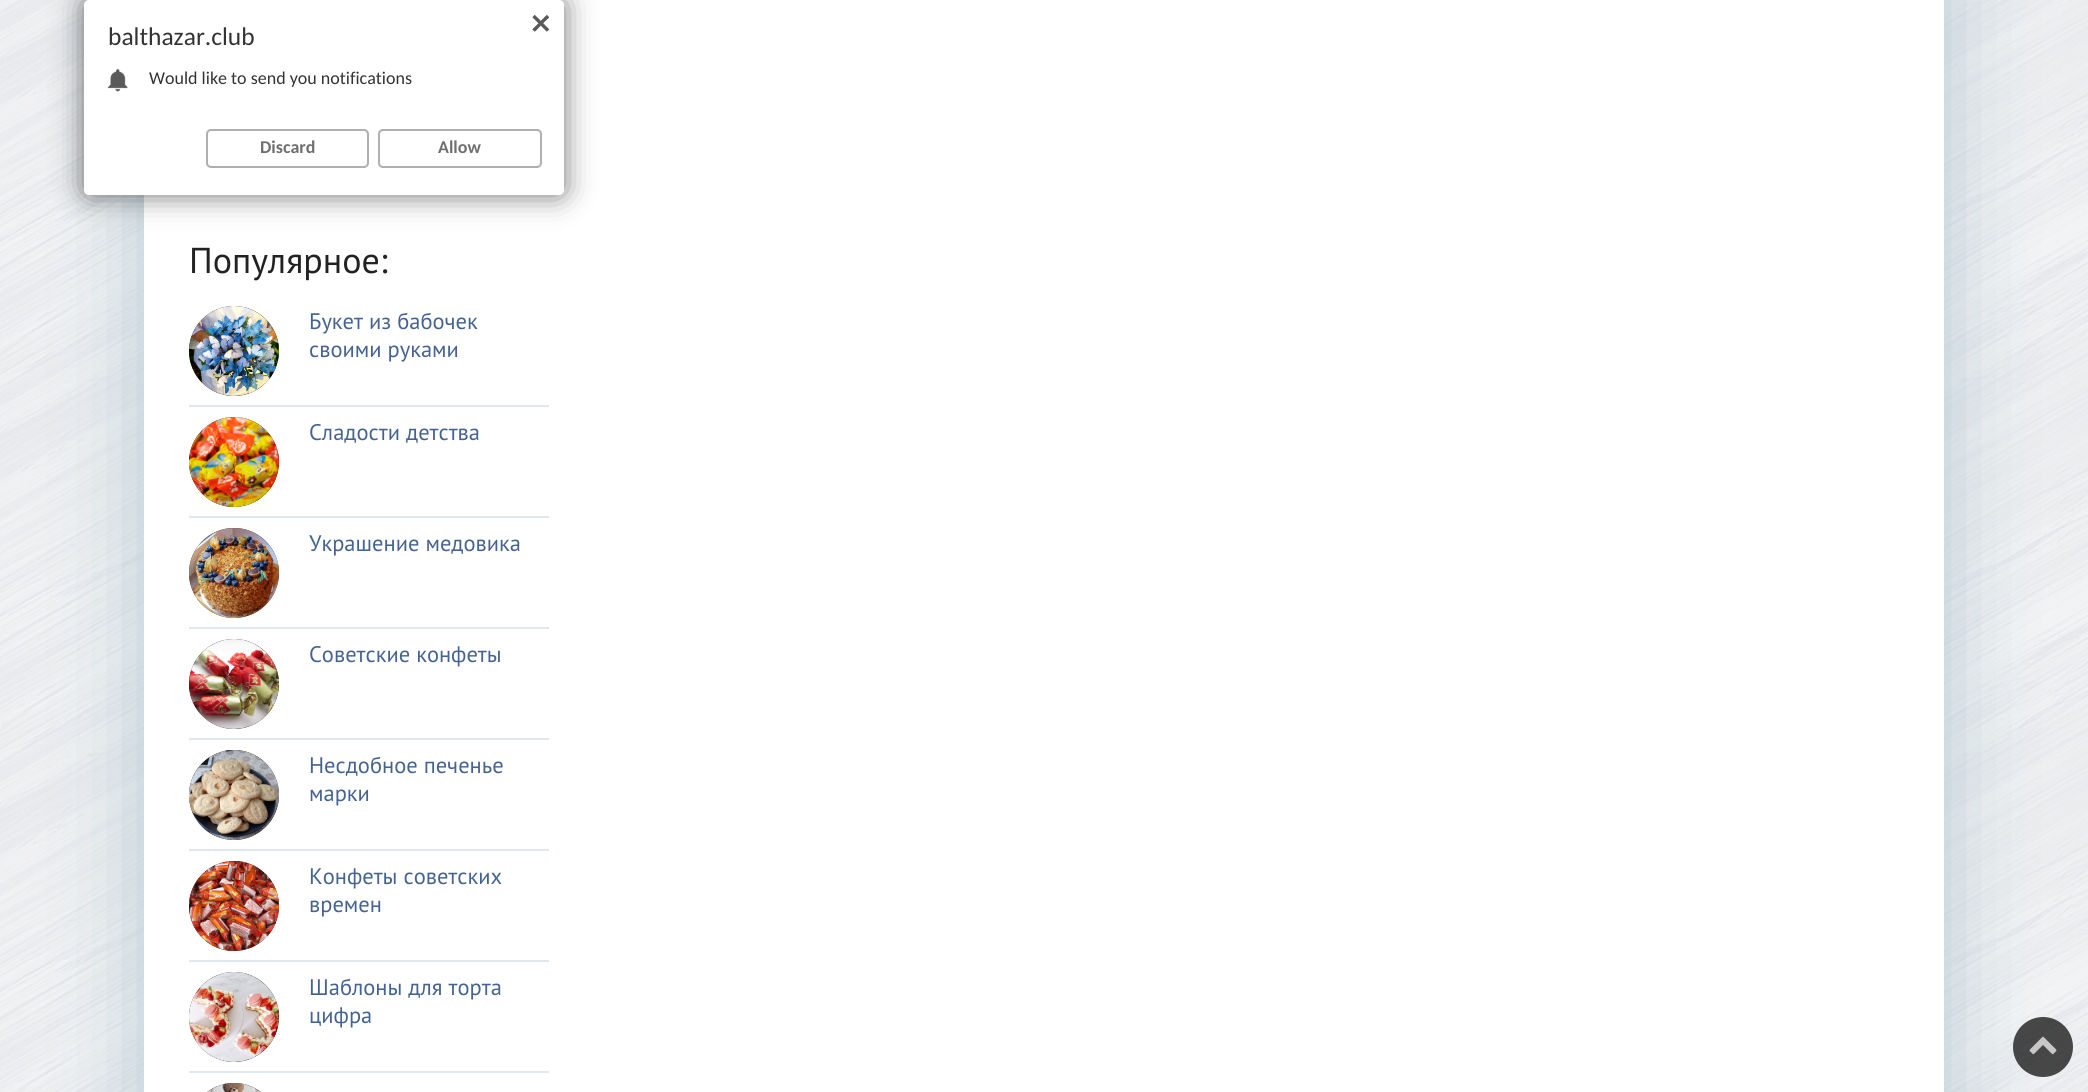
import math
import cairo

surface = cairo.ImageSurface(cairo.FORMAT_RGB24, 2088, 1092)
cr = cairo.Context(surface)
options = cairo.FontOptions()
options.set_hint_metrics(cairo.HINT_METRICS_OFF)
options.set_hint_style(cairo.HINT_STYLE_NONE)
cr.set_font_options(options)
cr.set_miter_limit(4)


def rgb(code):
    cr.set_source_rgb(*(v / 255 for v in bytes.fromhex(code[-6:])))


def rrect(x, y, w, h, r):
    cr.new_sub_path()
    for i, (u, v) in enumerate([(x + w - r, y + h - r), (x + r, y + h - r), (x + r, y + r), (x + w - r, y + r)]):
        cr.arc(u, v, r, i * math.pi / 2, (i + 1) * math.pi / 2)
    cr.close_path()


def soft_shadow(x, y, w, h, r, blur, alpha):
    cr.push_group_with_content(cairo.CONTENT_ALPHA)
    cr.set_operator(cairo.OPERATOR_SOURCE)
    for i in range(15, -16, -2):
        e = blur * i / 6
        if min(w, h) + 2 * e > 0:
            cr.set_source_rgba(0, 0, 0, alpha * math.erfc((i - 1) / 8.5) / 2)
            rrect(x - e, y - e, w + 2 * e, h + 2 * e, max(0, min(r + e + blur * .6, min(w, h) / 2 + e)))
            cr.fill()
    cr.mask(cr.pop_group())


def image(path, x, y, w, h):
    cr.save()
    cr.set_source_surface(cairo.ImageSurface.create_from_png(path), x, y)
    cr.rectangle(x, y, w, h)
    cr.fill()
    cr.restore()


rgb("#ffffff")
cr.paint()
image("img/1.png", 0, 0, 2088, 1092)
rgb("#b3cad3")
soft_shadow(144, -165, 1800, 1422, 30, 45, 1)
rgb("#ffffff")
cr.rectangle(144, 0, 1800, 1092)
cr.fill()
rgb("#000000")
soft_shadow(84, 0, 480, 195, 5, 15, 0.54)
rgb("#ffffff")
rrect(84, 0, 480, 195, 5)
cr.fill()
image("img/2.png", 532, 15, 17, 17)
image("img/3.png", 108, 68, 20, 24)
rrect(207, 130, 161, 37, 4)
rgb("#afafaf")
cr.stroke()
rrect(379, 130, 162, 37, 4)
cr.stroke()
rgb("#dfe8ee")
cr.rectangle(189, 405, 360, 2)
cr.fill()
rgb("#222222")
cr.arc(234, 351, 45, 0, 2 * math.pi)
cr.fill()
image("img/4.png", 189, 306, 90, 90)
rgb("#dfe8ee")
cr.rectangle(189, 516, 360, 2)
cr.fill()
rgb("#222222")
cr.arc(234, 462, 45, 0, 2 * math.pi)
cr.fill()
image("img/5.png", 189, 417, 90, 90)
rgb("#dfe8ee")
cr.rectangle(189, 627, 360, 2)
cr.fill()
rgb("#222222")
cr.arc(234, 573, 45, 0, 2 * math.pi)
cr.fill()
image("img/6.png", 189, 528, 90, 90)
rgb("#dfe8ee")
cr.rectangle(189, 738, 360, 2)
cr.fill()
rgb("#222222")
cr.arc(234, 684, 45, 0, 2 * math.pi)
cr.fill()
image("img/7.png", 189, 639, 90, 90)
rgb("#dfe8ee")
cr.rectangle(189, 849, 360, 2)
cr.fill()
rgb("#222222")
cr.arc(234, 795, 45, 0, 2 * math.pi)
cr.fill()
image("img/8.png", 189, 750, 90, 90)
rgb("#dfe8ee")
cr.rectangle(189, 960, 360, 2)
cr.fill()
rgb("#222222")
cr.arc(234, 906, 45, 0, 2 * math.pi)
cr.fill()
image("img/9.png", 189, 861, 90, 90)
rgb("#dfe8ee")
cr.rectangle(189, 1071, 360, 2)
cr.fill()
rgb("#222222")
cr.arc(234, 1017, 45, 0, 2 * math.pi)
cr.fill()
image("img/10.png", 189, 972, 90, 90)
rrect(189, 1083, 90, 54, 45)
cr.fill()
image("img/11.png", 207, 1083, 54, 9)
cr.set_source_rgba(0, 0, 0, 0.7)
cr.arc(2043, 1047, 30, 0, 2 * math.pi)
cr.fill()
image("img/12.png", 2029, 1036, 28, 19)
cr.select_font_face("Carlito")
cr.set_font_size(25.5)
rgb("#333333")
cr.move_to(108, 45)
cr.show_text("balthazar.club")
cr.set_font_size(18)
cr.move_to(149, 84)
cr.show_text("Would like to send you notifications")
cr.select_font_face("Carlito", cairo.FONT_SLANT_NORMAL, cairo.FONT_WEIGHT_BOLD)
rgb("#6f6f6f")
cr.move_to(260, 153)
cr.show_text("Discard")
cr.move_to(438, 153)
cr.show_text("Allow")
cr.select_font_face("PT Sans")
cr.set_font_size(36)
rgb("#222222")
cr.move_to(189, 273)
cr.show_text("Популярное:")
cr.set_font_size(22.5)
rgb("#456390")
for x, y, s in [
    (309, 329, "Букет из бабочек"),
    (309, 357, "своими руками"),
    (309, 440, "Сладости детства"),
    (309, 551, "Украшение медовика"),
    (309, 662, "Советские конфеты"),
    (309, 773, "Несдобное печенье"),
    (309, 801, "марки"),
    (309, 884, "Конфеты советских"),
    (309, 912, "времен"),
    (309, 995, "Шаблоны для торта"),
    (309, 1023, "цифра"),
]:
    cr.move_to(x, y)
    cr.show_text(s)
surface.write_to_png("page.png")
